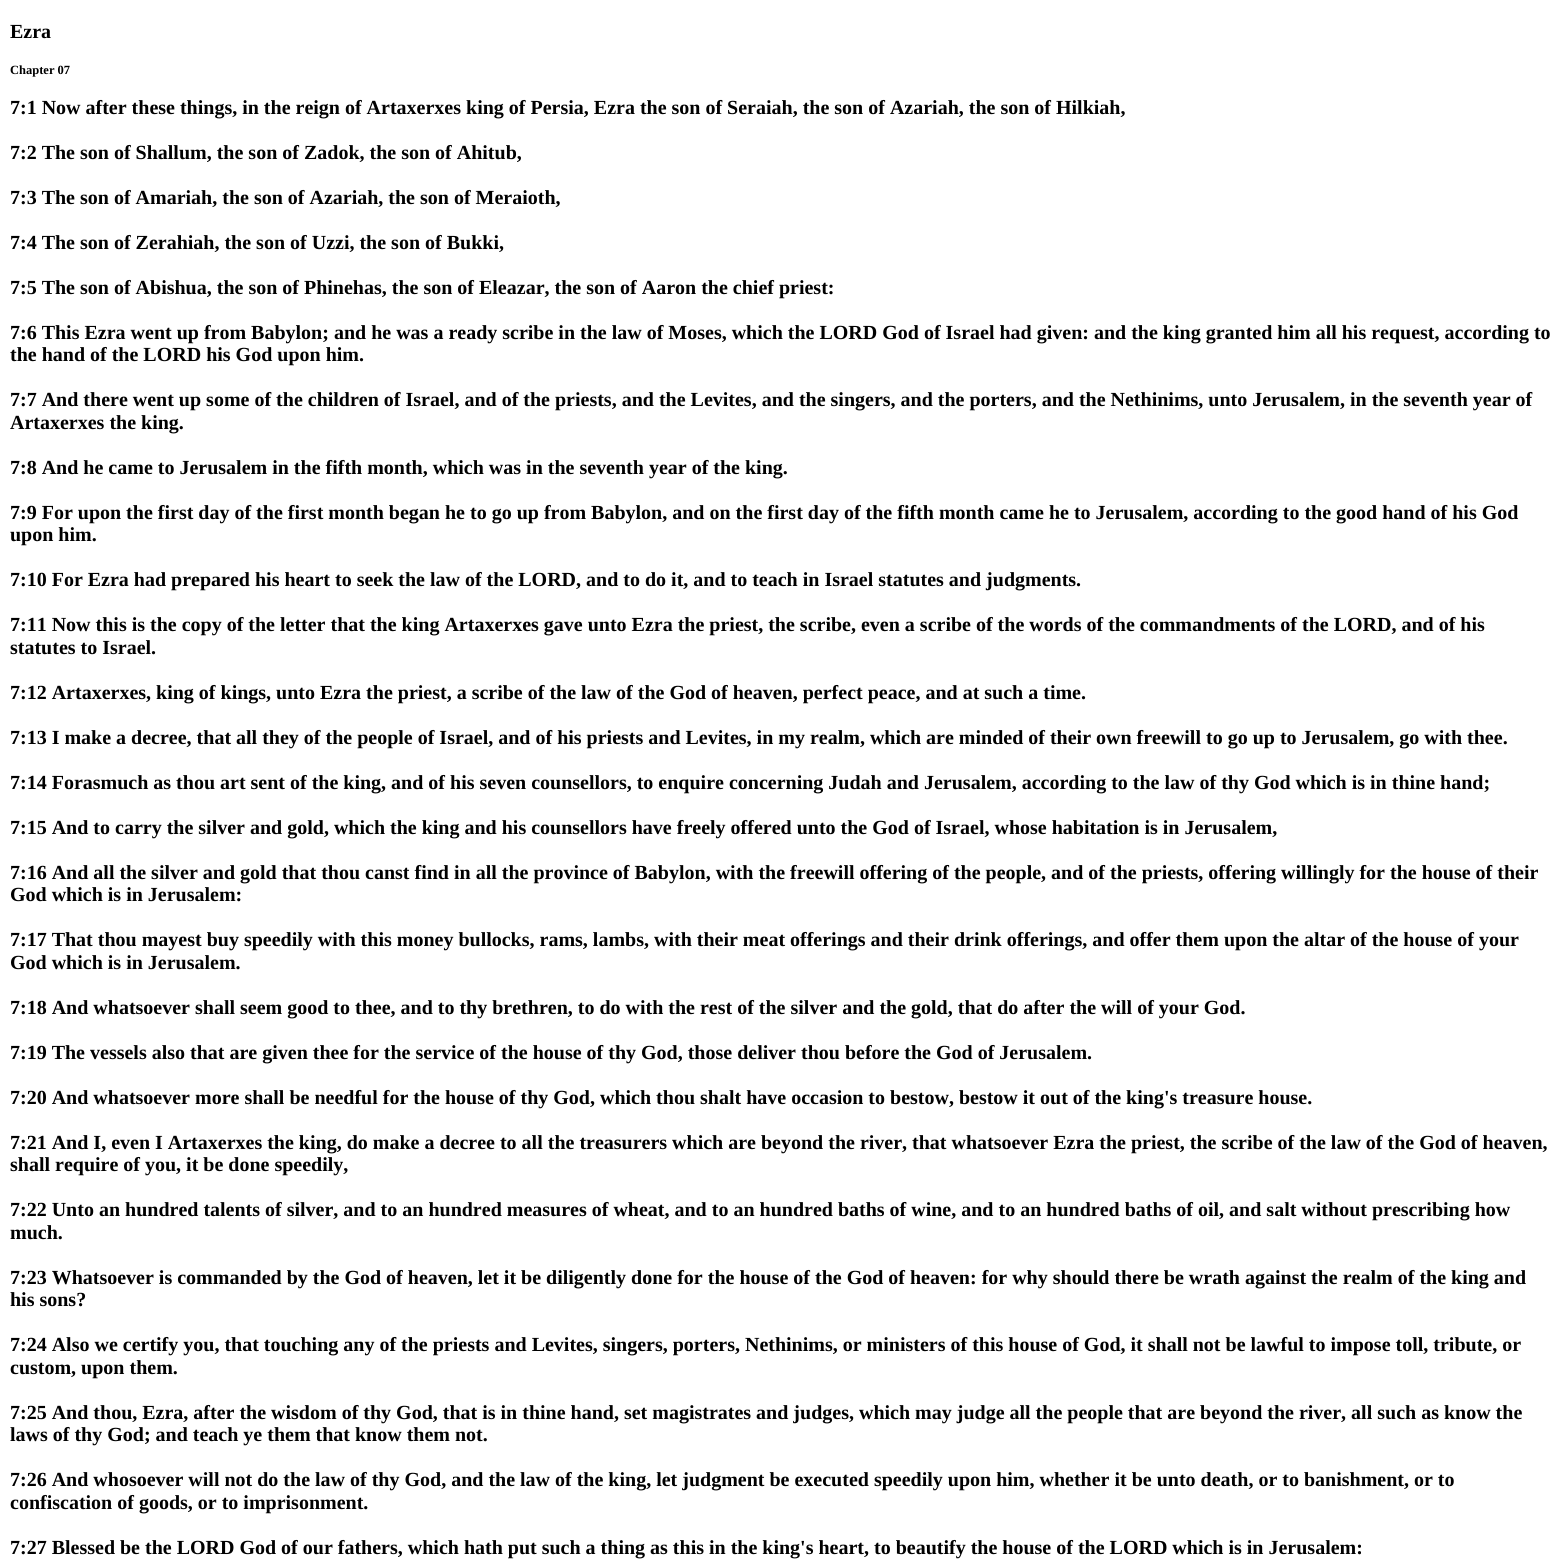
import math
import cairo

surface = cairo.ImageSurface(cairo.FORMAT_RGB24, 1565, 1563)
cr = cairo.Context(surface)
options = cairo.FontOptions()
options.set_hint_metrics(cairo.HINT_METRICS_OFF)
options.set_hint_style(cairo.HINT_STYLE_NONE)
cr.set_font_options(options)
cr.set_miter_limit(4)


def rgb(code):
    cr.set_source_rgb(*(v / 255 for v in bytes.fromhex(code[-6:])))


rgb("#ffffff")
cr.paint()
cr.select_font_face("Liberation Serif", cairo.FONT_SLANT_NORMAL, cairo.FONT_WEIGHT_BOLD)
cr.set_font_size(20)
rgb("#000000")
cr.move_to(10, 38)
cr.show_text("Ezra")
cr.set_font_size(12.5)
cr.move_to(10, 74)
cr.show_text("Chapter 07")
cr.set_font_size(20)
for x, y, s in [
    (10, 114, "7:1 Now after these things, in the reign of Artaxerxes king of Persia, Ezra the son of Seraiah, the son of Azariah, the son of Hilkiah,"),
    (10, 159, "7:2 The son of Shallum, the son of Zadok, the son of Ahitub,"),
    (10, 204, "7:3 The son of Amariah, the son of Azariah, the son of Meraioth,"),
    (10, 249, "7:4 The son of Zerahiah, the son of Uzzi, the son of Bukki,"),
    (10, 294, "7:5 The son of Abishua, the son of Phinehas, the son of Eleazar, the son of Aaron the chief priest:"),
    (10, 339, "7:6 This Ezra went up from Babylon; and he was a ready scribe in the law of Moses, which the LORD God of Israel had given: and the king granted him all his request, according to"),
    (10, 361, "the hand of the LORD his God upon him."),
    (10, 406, "7:7 And there went up some of the children of Israel, and of the priests, and the Levites, and the singers, and the porters, and the Nethinims, unto Jerusalem, in the seventh year of"),
    (10, 429, "Artaxerxes the king."),
    (10, 474, "7:8 And he came to Jerusalem in the fifth month, which was in the seventh year of the king."),
    (10, 519, "7:9 For upon the first day of the first month began he to go up from Babylon, and on the first day of the fifth month came he to Jerusalem, according to the good hand of his God"),
    (10, 541, "upon him."),
    (10, 586, "7:10 For Ezra had prepared his heart to seek the law of the LORD, and to do it, and to teach in Israel statutes and judgments."),
    (10, 631, "7:11 Now this is the copy of the letter that the king Artaxerxes gave unto Ezra the priest, the scribe, even a scribe of the words of the commandments of the LORD, and of his"),
    (10, 654, "statutes to Israel."),
    (10, 699, "7:12 Artaxerxes, king of kings, unto Ezra the priest, a scribe of the law of the God of heaven, perfect peace, and at such a time."),
    (10, 744, "7:13 I make a decree, that all they of the people of Israel, and of his priests and Levites, in my realm, which are minded of their own freewill to go up to Jerusalem, go with thee."),
    (10, 789, "7:14 Forasmuch as thou art sent of the king, and of his seven counsellors, to enquire concerning Judah and Jerusalem, according to the law of thy God which is in thine hand;"),
    (10, 834, "7:15 And to carry the silver and gold, which the king and his counsellors have freely offered unto the God of Israel, whose habitation is in Jerusalem,"),
    (10, 879, "7:16 And all the silver and gold that thou canst find in all the province of Babylon, with the freewill offering of the people, and of the priests, offering willingly for the house of their"),
    (10, 901, "God which is in Jerusalem:"),
    (10, 946, "7:17 That thou mayest buy speedily with this money bullocks, rams, lambs, with their meat offerings and their drink offerings, and offer them upon the altar of the house of your"),
    (10, 969, "God which is in Jerusalem."),
    (10, 1014, "7:18 And whatsoever shall seem good to thee, and to thy brethren, to do with the rest of the silver and the gold, that do after the will of your God."),
    (10, 1059, "7:19 The vessels also that are given thee for the service of the house of thy God, those deliver thou before the God of Jerusalem."),
    (10, 1104, "7:20 And whatsoever more shall be needful for the house of thy God, which thou shalt have occasion to bestow, bestow it out of the king's treasure house."),
    (10, 1149, "7:21 And I, even I Artaxerxes the king, do make a decree to all the treasurers which are beyond the river, that whatsoever Ezra the priest, the scribe of the law of the God of heaven,"),
    (10, 1171, "shall require of you, it be done speedily,"),
    (10, 1216, "7:22 Unto an hundred talents of silver, and to an hundred measures of wheat, and to an hundred baths of wine, and to an hundred baths of oil, and salt without prescribing how"),
    (10, 1239, "much."),
    (10, 1284, "7:23 Whatsoever is commanded by the God of heaven, let it be diligently done for the house of the God of heaven: for why should there be wrath against the realm of the king and"),
    (10, 1306, "his sons?"),
    (10, 1351, "7:24 Also we certify you, that touching any of the priests and Levites, singers, porters, Nethinims, or ministers of this house of God, it shall not be lawful to impose toll, tribute, or"),
    (10, 1374, "custom, upon them."),
    (10, 1419, "7:25 And thou, Ezra, after the wisdom of thy God, that is in thine hand, set magistrates and judges, which may judge all the people that are beyond the river, all such as know the"),
    (10, 1441, "laws of thy God; and teach ye them that know them not."),
    (10, 1486, "7:26 And whosoever will not do the law of thy God, and the law of the king, let judgment be executed speedily upon him, whether it be unto death, or to banishment, or to"),
    (10, 1509, "confiscation of goods, or to imprisonment."),
    (10, 1554, "7:27 Blessed be the LORD God of our fathers, which hath put such a thing as this in the king's heart, to beautify the house of the LORD which is in Jerusalem:"),
]:
    cr.move_to(x, y)
    cr.show_text(s)
surface.write_to_png("page.png")
